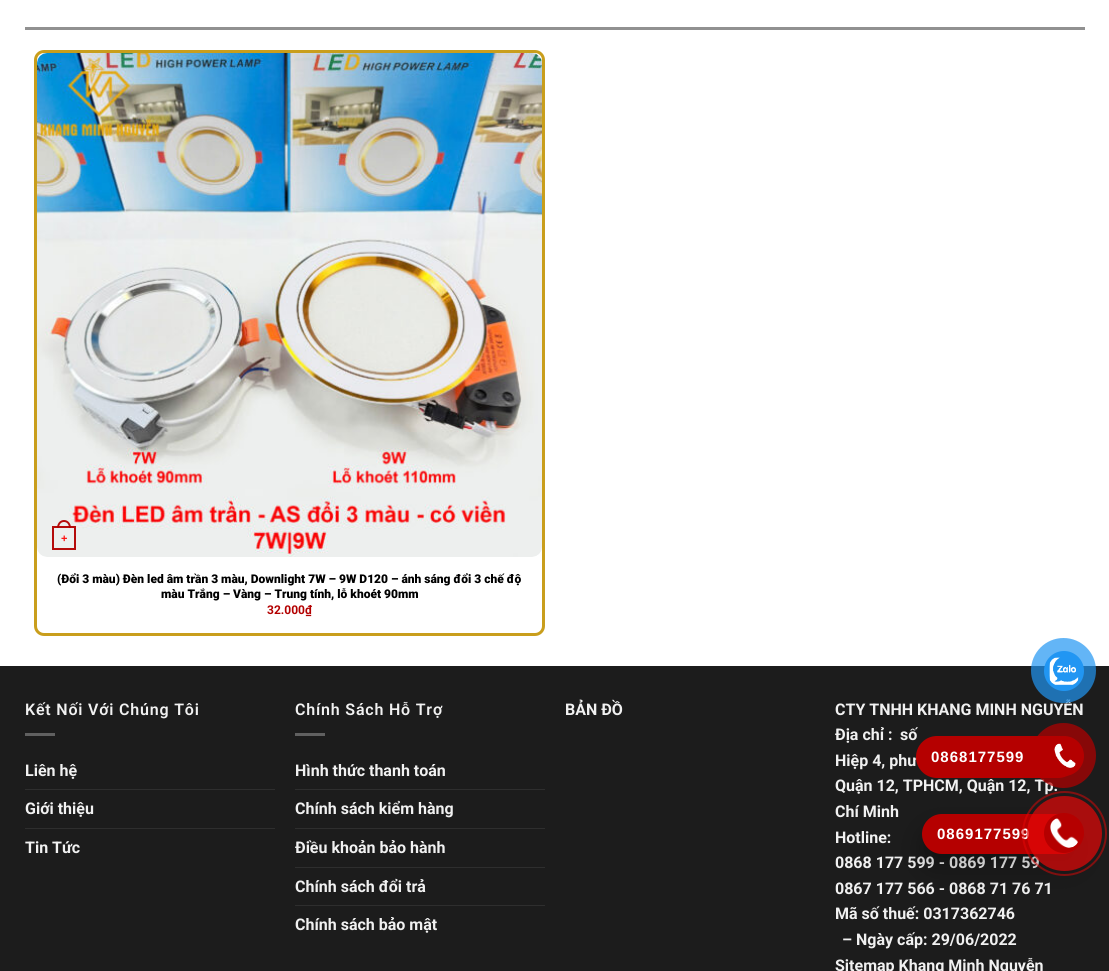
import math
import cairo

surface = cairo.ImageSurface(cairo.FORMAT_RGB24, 1109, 971)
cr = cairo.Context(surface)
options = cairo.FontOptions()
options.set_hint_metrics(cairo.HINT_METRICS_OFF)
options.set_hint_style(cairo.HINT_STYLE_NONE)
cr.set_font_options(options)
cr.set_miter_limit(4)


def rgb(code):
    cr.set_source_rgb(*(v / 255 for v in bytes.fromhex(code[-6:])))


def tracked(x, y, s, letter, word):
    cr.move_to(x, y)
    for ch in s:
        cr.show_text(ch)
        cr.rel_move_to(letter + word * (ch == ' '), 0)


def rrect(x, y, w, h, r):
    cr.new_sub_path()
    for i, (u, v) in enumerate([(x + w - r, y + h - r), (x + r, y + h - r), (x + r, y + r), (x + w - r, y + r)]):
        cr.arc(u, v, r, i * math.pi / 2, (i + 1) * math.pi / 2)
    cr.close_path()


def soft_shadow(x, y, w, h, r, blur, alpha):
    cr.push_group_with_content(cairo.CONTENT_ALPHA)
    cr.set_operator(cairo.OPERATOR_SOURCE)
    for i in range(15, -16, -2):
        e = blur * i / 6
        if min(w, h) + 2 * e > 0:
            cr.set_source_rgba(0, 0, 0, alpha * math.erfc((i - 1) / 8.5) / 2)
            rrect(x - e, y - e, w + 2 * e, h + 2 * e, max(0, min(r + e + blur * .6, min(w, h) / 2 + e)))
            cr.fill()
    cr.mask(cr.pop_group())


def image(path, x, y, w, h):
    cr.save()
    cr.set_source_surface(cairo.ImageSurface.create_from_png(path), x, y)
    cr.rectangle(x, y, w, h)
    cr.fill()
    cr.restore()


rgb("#ffffff")
cr.paint()
rgb("#919191")
cr.rectangle(25, 27, 1060, 3)
cr.fill()
rrect(35.5, 51.5, 508, 583, 8.5)
rgb("#c99e1c")
cr.set_line_width(3)
cr.stroke()
image("img/1.png", 37, 53, 505, 504)
cr.rectangle(53, 527, 22, 22)
cr.set_source_rgba(0.702, 0, 0, 0.95)
cr.set_line_width(2)
cr.stroke()
cr.set_fill_rule(cairo.FILL_RULE_EVEN_ODD)
cr.new_path()
cr.move_to(64, 520)
cr.curve_to(68.5, 520, 71, 524, 71, 528)
cr.line_to(57, 528)
cr.curve_to(57, 524, 59.5, 520, 64, 520)
cr.close_path()
cr.move_to(64, 522)
cr.curve_to(67.5, 522, 69, 525, 69, 528)
cr.line_to(59, 528)
cr.curve_to(59, 525, 60.5, 522, 64, 522)
cr.close_path()
cr.fill()
for x, y, w, h, color in [
    (0, 666, 1109, 305, "#1c1c1c"),
    (25, 733, 30, 3, "#606060"),
    (25, 789, 250, 1, "#2e2e2e"),
    (25, 828, 250, 1, "#2e2e2e"),
    (295, 733, 30, 3, "#606060"),
    (295, 789, 250, 1, "#2e2e2e"),
    (295, 828, 250, 1, "#2e2e2e"),
    (295, 867, 250, 1, "#2e2e2e"),
    (295, 905, 250, 1, "#2e2e2e"),
]:
    rgb(color)
    cr.rectangle(x, y, w, h)
    cr.fill()
rgb("#000000")
soft_shadow(922, 824, 160, 40, 20, 5, 0.1)
cr.select_font_face("Liberation Sans", cairo.FONT_SLANT_NORMAL, cairo.FONT_WEIGHT_BOLD)
cr.set_font_size(11)
rgb("#fe0c0c")
cr.move_to(61, 542)
cr.show_text("+")
cr.select_font_face("Roboto Black")
cr.set_font_size(12)
rgb("#000000")
cr.move_to(57, 583)
cr.show_text("(Đổi 3 màu) Đèn led âm trần 3 màu, Downlight 7W – 9W D120 – ánh sáng đổi 3 chế độ")
cr.move_to(161, 598)
cr.show_text("màu Trắng – Vàng – Trung tính, lỗ khoét 90mm")
cr.select_font_face("Roboto", cairo.FONT_SLANT_NORMAL, cairo.FONT_WEIGHT_BOLD)
rgb("#b30000")
cr.move_to(267, 614)
cr.show_text("32.000₫")
cr.select_font_face("Roboto SemiBold")
cr.set_font_size(16)
rgb("#f1f1f1")
tracked(25, 715, "Kết Nối Với Chúng Tôi", 0.8, 0)
cr.select_font_face("Roboto", cairo.FONT_SLANT_NORMAL, cairo.FONT_WEIGHT_BOLD)
for x, y, s in [
    (25, 776, "Liên hệ"),
    (25, 814, "Giới thiệu"),
    (25, 853, "Tin Tức"),
]:
    cr.move_to(x, y)
    cr.show_text(s)
cr.select_font_face("Roboto SemiBold")
tracked(295, 715, "Chính Sách Hỗ Trợ", 0.8, 0)
cr.select_font_face("Roboto", cairo.FONT_SLANT_NORMAL, cairo.FONT_WEIGHT_BOLD)
for x, y, s in [
    (295, 776, "Hình thức thanh toán"),
    (295, 814, "Chính sách kiểm hàng"),
    (295, 853, "Điều khoản bảo hành"),
    (295, 892, "Chính sách đổi trả"),
    (295, 930, "Chính sách bảo mật"),
    (565, 715, "BẢN ĐỒ"),
    (835, 715, "CTY TNHH KHANG MINH NGUYỄN"),
    (835, 740, "Địa chỉ :"),
    (900, 740, "số"),
    (835, 766, "Hiệp 4, phư"),
    (835, 791, "Quận 12, TPHCM, Quận 12, Tp."),
    (835, 817, "Chí Minh"),
    (835, 843, "Hotline:"),
    (835, 868, "0868 177 599 - 0869 177 59"),
    (835, 894, "0867 177 566 - 0868 71 76 71"),
    (835, 919, "Mã số thuế: 0317362746"),
    (842, 945, "– Ngày cấp: 29/06/2022"),
    (835, 971, "Sitemap Khang Minh Nguyễn"),
]:
    cr.move_to(x, y)
    cr.show_text(s)
cr.set_source_rgba(0.129, 0.588, 0.953, 0.7)
cr.new_path()
cr.arc(1063.5, 670.5, 32.5, 0, 2 * math.pi)
cr.fill()
rgb("#2196f3")
cr.arc(1064, 671, 20, 0, 2 * math.pi)
cr.fill()
image("img/2.png", 1049, 657, 30, 28)
rgb("#b50000")
rrect(916, 736, 163, 42, 21)
cr.fill()
cr.select_font_face("Liberation Sans", cairo.FONT_SLANT_NORMAL, cairo.FONT_WEIGHT_BOLD)
cr.set_font_size(15)
rgb("#ffffff")
tracked(931, 762, "0868177599", 1, 0)
cr.set_source_rgba(0.71, 0, 0, 0.7)
cr.new_path()
cr.arc(1063.5, 755.5, 32.5, 0, 2 * math.pi)
cr.fill()
rgb("#b50000")
cr.arc(1064, 756, 20, 0, 2 * math.pi)
cr.fill()
image("img/3.png", 1054, 743, 22, 25)
rgb("#000000")
soft_shadow(922, 828, 160, 40, 20, 14, 0.25)
rgb("#b50000")
rrect(922, 814, 160, 40, 20)
cr.fill()
rgb("#ffffff")
tracked(937, 839, "0869177599", 1, 0)
cr.new_path()
cr.arc(1064.5, 833.5, 41.5, 0, 2 * math.pi)
cr.set_source_rgba(0.902, 0.031, 0.031, 0.5)
cr.stroke()
cr.set_source_rgba(0.902, 0.031, 0.031, 0.7)
cr.arc(1064.5, 833.5, 37.5, 0, 2 * math.pi)
cr.fill()
rgb("#b50000")
cr.arc(1064, 833, 20, 0, 2 * math.pi)
cr.fill()
image("img/4.png", 1050, 818, 28, 30)
surface.write_to_png("page.png")
